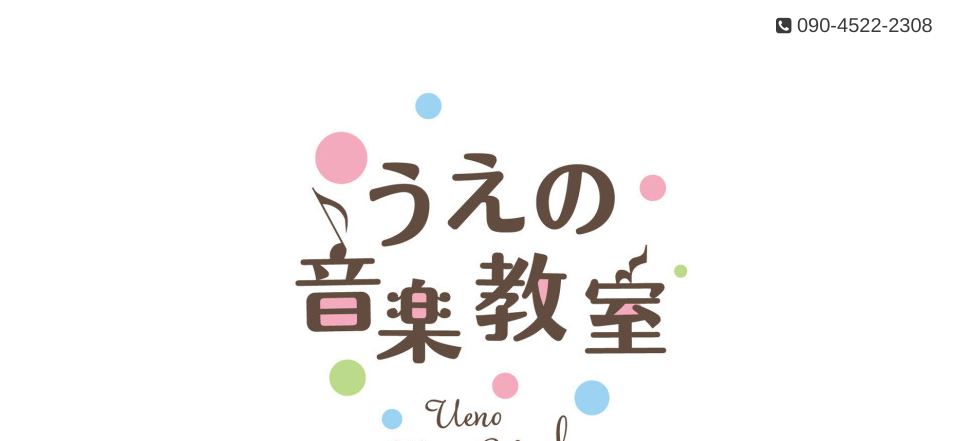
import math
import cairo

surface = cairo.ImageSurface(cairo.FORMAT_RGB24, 953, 441)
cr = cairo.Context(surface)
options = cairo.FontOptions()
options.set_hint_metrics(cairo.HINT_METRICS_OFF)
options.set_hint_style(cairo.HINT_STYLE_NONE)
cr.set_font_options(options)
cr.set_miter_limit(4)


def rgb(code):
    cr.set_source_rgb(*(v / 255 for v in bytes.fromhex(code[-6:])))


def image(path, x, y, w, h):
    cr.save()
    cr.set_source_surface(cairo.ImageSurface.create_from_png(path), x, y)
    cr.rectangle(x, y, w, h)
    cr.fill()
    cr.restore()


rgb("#ffffff")
cr.paint()
image("img/1.png", 776, 17, 16, 17)
image("img/2.png", 291, 86, 400, 355)
cr.select_font_face("Liberation Sans")
cr.set_font_size(20)
rgb("#3a3a3a")
cr.move_to(797, 32)
cr.show_text("090-4522-2308")
surface.write_to_png("page.png")
